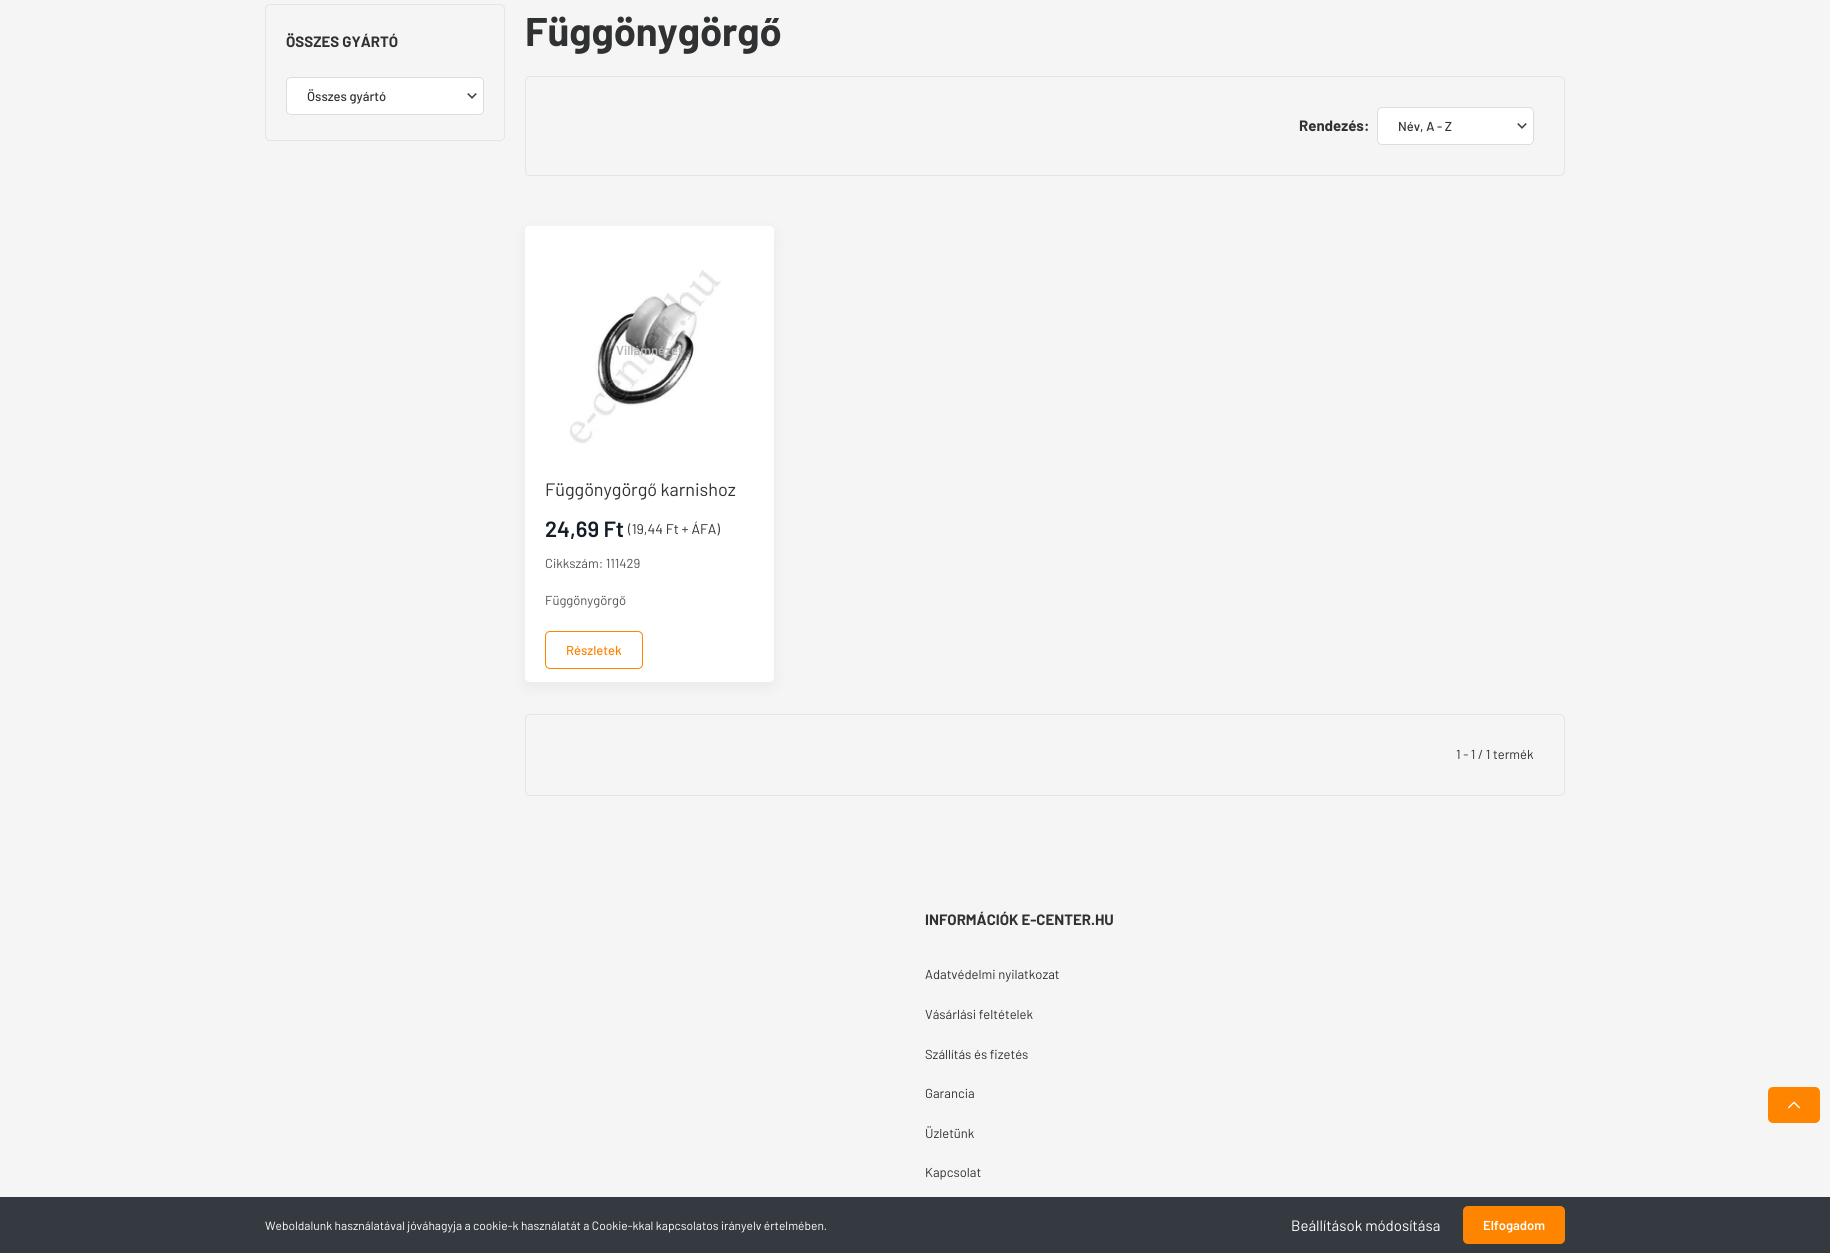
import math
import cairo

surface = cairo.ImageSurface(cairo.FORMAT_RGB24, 1830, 1253)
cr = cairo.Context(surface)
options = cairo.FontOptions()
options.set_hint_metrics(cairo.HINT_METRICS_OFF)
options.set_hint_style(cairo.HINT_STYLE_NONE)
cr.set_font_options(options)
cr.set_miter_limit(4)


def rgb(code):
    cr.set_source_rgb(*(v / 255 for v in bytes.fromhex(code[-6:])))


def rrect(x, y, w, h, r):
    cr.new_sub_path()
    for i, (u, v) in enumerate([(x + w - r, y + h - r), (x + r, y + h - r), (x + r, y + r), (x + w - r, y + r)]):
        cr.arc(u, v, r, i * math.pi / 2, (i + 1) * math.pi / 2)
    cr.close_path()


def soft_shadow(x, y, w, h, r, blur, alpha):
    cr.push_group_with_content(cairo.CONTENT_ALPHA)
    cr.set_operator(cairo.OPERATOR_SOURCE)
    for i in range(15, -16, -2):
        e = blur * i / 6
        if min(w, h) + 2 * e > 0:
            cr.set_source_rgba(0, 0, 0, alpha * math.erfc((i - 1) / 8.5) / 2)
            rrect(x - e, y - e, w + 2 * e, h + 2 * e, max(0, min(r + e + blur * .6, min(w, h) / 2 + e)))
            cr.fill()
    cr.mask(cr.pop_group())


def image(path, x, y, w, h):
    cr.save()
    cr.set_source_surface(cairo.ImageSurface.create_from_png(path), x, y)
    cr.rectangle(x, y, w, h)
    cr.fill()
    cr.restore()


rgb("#f5f5f5")
cr.paint()
rrect(265.5, 4.5, 239, 136, 4.5)
rgb("#e4e4ea")
cr.set_line_width(1)
cr.stroke()
rgb("#ffffff")
rrect(286, 77, 198, 38, 5)
cr.fill()
image("img/1.png", 467, 93, 10, 6)
rrect(286.5, 77.5, 197, 37, 4.5)
rgb("#dddde1")
cr.stroke()
rrect(525.5, 76.5, 1039, 99, 4.5)
rgb("#e4e4ea")
cr.stroke()
rgb("#ffffff")
rrect(1377, 107, 157, 38, 5)
cr.fill()
image("img/1.png", 1517, 123, 10, 6)
rrect(1377.5, 107.5, 156, 37, 4.5)
rgb("#dddde1")
cr.stroke()
rgb("#000000")
soft_shadow(525, 231, 249, 456, 5, 7.5, 0.05)
rgb("#ffffff")
rrect(525, 226, 249, 456, 5)
cr.fill()
rrect(525, 226, 249, 248, 5)
cr.fill()
image("img/2.png", 569, 270, 152, 174)
rrect(545.5, 631.5, 97, 37, 4.5)
rgb("#ff8400")
cr.stroke()
rrect(525.5, 714.5, 1039, 81, 4.5)
rgb("#e4e4ea")
cr.stroke()
rgb("#ff8400")
rrect(1768, 1087, 52, 36, 5)
cr.fill()
image("img/3.png", 1788, 1101, 12, 8)
rgb("#343a40")
cr.rectangle(0, 1197, 1830, 56)
cr.fill()
rgb("#ff8400")
rrect(1463, 1206, 102, 38, 5)
cr.fill()
cr.select_font_face("Barlow", cairo.FONT_SLANT_NORMAL, cairo.FONT_WEIGHT_BOLD)
cr.set_font_size(15)
rgb("#2f3132")
cr.move_to(286, 47)
cr.show_text("ÖSSZES GYÁRTÓ")
cr.select_font_face("Barlow Medium")
cr.set_font_size(13)
cr.move_to(307, 101)
cr.show_text("Összes gyártó")
cr.select_font_face("Barlow", cairo.FONT_SLANT_NORMAL, cairo.FONT_WEIGHT_BOLD)
cr.set_font_size(40)
cr.move_to(525, 46)
cr.show_text("Függönygörgő")
cr.set_font_size(15)
cr.move_to(1299, 131)
cr.show_text("Rendezés:")
cr.select_font_face("Barlow Medium")
cr.set_font_size(13)
cr.move_to(1398, 131)
cr.show_text("Név, A - Z")
cr.select_font_face("Barlow SemiBold")
rgb("#b5b5b5")
cr.move_to(616, 355)
cr.show_text("Villámnézet")
cr.select_font_face("Barlow")
cr.set_font_size(18)
rgb("#2f3132")
cr.move_to(545, 496)
cr.show_text("Függönygörgő karnishoz")
cr.select_font_face("Barlow SemiBold")
cr.set_font_size(22)
rgb("#151e26")
cr.move_to(545, 537)
cr.show_text("24,69 Ft")
cr.select_font_face("Barlow")
cr.set_font_size(14)
rgb("#2f3132")
cr.move_to(628, 534)
cr.show_text("(19,44 Ft + ÁFA)")
cr.set_font_size(13)
rgb("#4f5153")
cr.move_to(545, 568)
cr.show_text("Cikkszám: 111429")
cr.move_to(545, 605)
cr.show_text("Függönygörgő")
cr.select_font_face("Barlow Medium")
rgb("#ff8400")
cr.move_to(566, 655)
cr.show_text("Részletek")
cr.select_font_face("Barlow")
rgb("#2f3132")
cr.move_to(1456, 759)
cr.show_text("1 - 1 / 1 termék")
cr.select_font_face("Barlow", cairo.FONT_SLANT_NORMAL, cairo.FONT_WEIGHT_BOLD)
cr.set_font_size(15)
cr.move_to(925, 925)
cr.show_text("INFORMÁCIÓK E-CENTER.HU")
cr.select_font_face("Barlow")
cr.set_font_size(13)
for x, y, s in [
    (925, 979, "Adatvédelmi nyilatkozat"),
    (925, 1019, "Vásárlási feltételek"),
    (925, 1059, "Szállítás és fizetés"),
    (925, 1098, "Garancia"),
    (925, 1138, "Üzletünk"),
    (925, 1177, "Kapcsolat"),
]:
    cr.move_to(x, y)
    cr.show_text(s)
cr.set_font_size(12)
rgb("#ffffff")
cr.move_to(265, 1230)
cr.show_text("Weboldalunk használatával jóváhagyja a cookie-k használatát a Cookie-kkal kapcsolatos irányelv értelmében.")
cr.set_font_size(15)
cr.move_to(1291, 1231)
cr.show_text("Beállítások módosítása")
cr.select_font_face("Barlow SemiBold")
cr.set_font_size(13)
cr.move_to(1483, 1230)
cr.show_text("Elfogadom")
surface.write_to_png("page.png")
